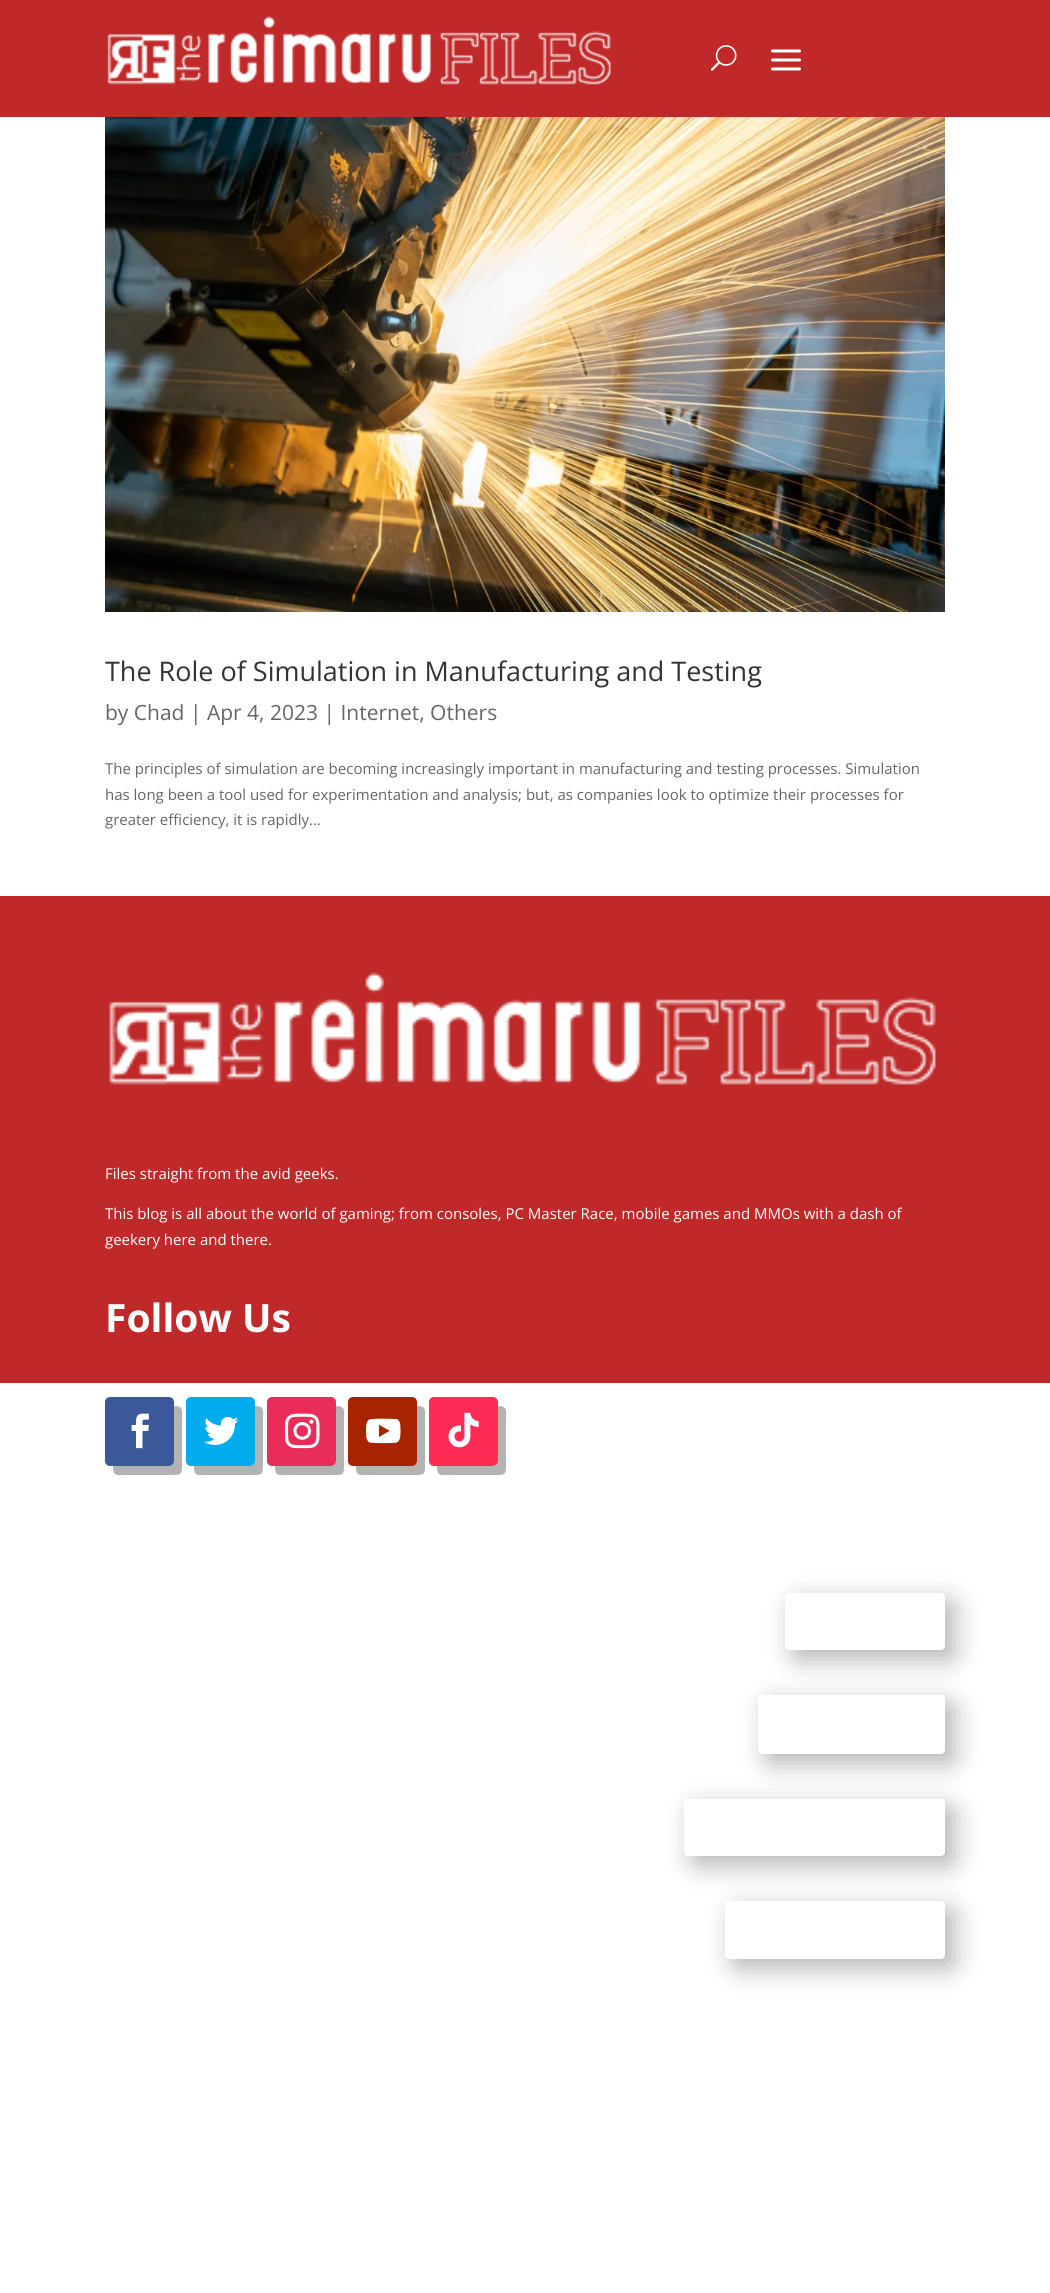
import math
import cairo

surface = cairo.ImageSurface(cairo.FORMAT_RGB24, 1050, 2293)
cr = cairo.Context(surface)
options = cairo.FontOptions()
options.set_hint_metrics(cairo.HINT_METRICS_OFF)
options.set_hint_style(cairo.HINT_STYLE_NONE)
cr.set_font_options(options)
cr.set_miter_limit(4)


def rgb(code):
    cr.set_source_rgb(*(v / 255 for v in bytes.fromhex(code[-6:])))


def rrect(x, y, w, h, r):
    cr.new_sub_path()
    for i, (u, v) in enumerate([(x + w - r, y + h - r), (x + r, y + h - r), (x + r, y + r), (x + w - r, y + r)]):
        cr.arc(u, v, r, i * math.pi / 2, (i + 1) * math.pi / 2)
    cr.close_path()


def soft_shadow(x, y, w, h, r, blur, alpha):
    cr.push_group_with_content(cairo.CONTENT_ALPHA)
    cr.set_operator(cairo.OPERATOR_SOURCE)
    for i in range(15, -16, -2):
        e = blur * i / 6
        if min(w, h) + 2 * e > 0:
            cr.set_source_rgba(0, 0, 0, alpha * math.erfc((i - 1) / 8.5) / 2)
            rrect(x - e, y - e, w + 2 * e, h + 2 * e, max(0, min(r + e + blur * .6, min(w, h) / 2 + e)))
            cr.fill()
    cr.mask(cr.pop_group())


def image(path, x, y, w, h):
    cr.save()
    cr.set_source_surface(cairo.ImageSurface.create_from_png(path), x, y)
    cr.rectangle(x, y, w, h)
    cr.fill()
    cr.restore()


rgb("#ffffff")
cr.paint()
rgb("#bf2929")
cr.rectangle(0, 0, 1050, 117)
cr.fill()
image("img/1.png", 107, 16, 504, 69)
image("img/2.png", 710, 45, 27, 26)
image("img/3.png", 771, 49, 30, 22)
image("img/4.png", 105, 117, 840, 495)
cr.rectangle(0, 896, 1050, 487)
cr.fill()
image("img/5.png", 109, 972, 827, 113)
rgb("#b3b3b3")
cr.new_path()
cr.move_to(113, 1466)
cr.curve_to(113, 1477, 116, 1475, 128, 1475)
cr.line_to(167, 1475)
cr.curve_to(183, 1475, 182, 1476, 182, 1460)
cr.line_to(182, 1421)
cr.curve_to(182, 1411, 184, 1406, 174, 1406)
cr.line_to(174, 1461)
cr.curve_to(174, 1463, 172, 1466, 170, 1466)
cr.close_path()
cr.fill()
rgb("#3b5998")
rrect(105, 1397, 69, 69, 5)
cr.fill()
image("img/6.png", 131, 1413, 18, 36)
rgb("#b3b3b3")
cr.new_path()
cr.move_to(194, 1466)
cr.curve_to(194, 1477, 197, 1475, 209, 1475)
cr.line_to(248, 1475)
cr.curve_to(264, 1475, 263, 1476, 263, 1460)
cr.line_to(263, 1421)
cr.curve_to(263, 1411, 265, 1406, 255, 1406)
cr.line_to(255, 1461)
cr.curve_to(255, 1463, 253, 1466, 250, 1466)
cr.close_path()
cr.fill()
rgb("#00aced")
rrect(186, 1397, 69, 69, 5)
cr.fill()
image("img/7.png", 204, 1416, 35, 29)
rgb("#b3b3b3")
cr.new_path()
cr.move_to(275, 1466)
cr.curve_to(275, 1477, 278, 1475, 290, 1475)
cr.line_to(329, 1475)
cr.curve_to(345, 1475, 344, 1476, 344, 1460)
cr.line_to(344, 1421)
cr.curve_to(344, 1411, 346, 1406, 336, 1406)
cr.line_to(336, 1461)
cr.curve_to(336, 1463, 334, 1466, 332, 1466)
cr.close_path()
cr.fill()
rgb("#ea2c59")
rrect(267, 1397, 69, 69, 5)
cr.fill()
image("img/8.png", 285, 1413, 35, 36)
rgb("#b3b3b3")
cr.new_path()
cr.move_to(356, 1466)
cr.curve_to(356, 1477, 359, 1475, 371, 1475)
cr.line_to(410, 1475)
cr.curve_to(426, 1475, 425, 1476, 425, 1460)
cr.line_to(425, 1421)
cr.curve_to(425, 1411, 427, 1406, 417, 1406)
cr.line_to(417, 1461)
cr.curve_to(417, 1463, 415, 1466, 412, 1466)
cr.close_path()
cr.fill()
rgb("#a82400")
rrect(348, 1397, 69, 69, 5)
cr.fill()
image("img/9.png", 366, 1418, 35, 26)
rgb("#b3b3b3")
cr.new_path()
cr.move_to(437, 1466)
cr.curve_to(437, 1477, 440, 1475, 452, 1475)
cr.line_to(491, 1475)
cr.curve_to(507, 1475, 506, 1476, 506, 1460)
cr.line_to(506, 1421)
cr.curve_to(506, 1411, 508, 1406, 498, 1406)
cr.line_to(498, 1461)
cr.curve_to(498, 1463, 496, 1466, 494, 1466)
cr.close_path()
cr.fill()
rgb("#fe2c55")
rrect(429, 1397, 69, 69, 5)
cr.fill()
image("img/10.png", 448, 1412, 31, 36)
cr.save()
cr.set_fill_rule(cairo.FILL_RULE_EVEN_ODD)
cr.new_path()
cr.move_to(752, 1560)
cr.line_to(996, 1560)
cr.line_to(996, 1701)
cr.line_to(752, 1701)
cr.close_path()
cr.move_to(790, 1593)
cr.line_to(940, 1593)
cr.curve_to(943, 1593, 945, 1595, 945, 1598)
cr.line_to(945, 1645)
cr.curve_to(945, 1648, 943, 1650, 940, 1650)
cr.line_to(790, 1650)
cr.curve_to(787, 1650, 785, 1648, 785, 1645)
cr.line_to(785, 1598)
cr.curve_to(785, 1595, 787, 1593, 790, 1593)
cr.close_path()
cr.clip()
rgb("#000000")
soft_shadow(794, 1602, 160, 57, 5, 13.5, 0.3)
cr.restore()
rrect(786.5, 1594.5, 157, 54, 3.5)
rgb("#ffffff")
cr.set_line_width(3)
cr.stroke()
cr.save()
cr.set_fill_rule(cairo.FILL_RULE_EVEN_ODD)
cr.new_path()
cr.move_to(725, 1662)
cr.line_to(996, 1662)
cr.line_to(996, 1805)
cr.line_to(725, 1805)
cr.close_path()
cr.move_to(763, 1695)
cr.line_to(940, 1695)
cr.curve_to(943, 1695, 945, 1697, 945, 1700)
cr.line_to(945, 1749)
cr.curve_to(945, 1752, 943, 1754, 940, 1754)
cr.line_to(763, 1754)
cr.curve_to(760, 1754, 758, 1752, 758, 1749)
cr.line_to(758, 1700)
cr.curve_to(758, 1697, 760, 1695, 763, 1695)
cr.close_path()
cr.clip()
rgb("#000000")
soft_shadow(767, 1704, 187, 59, 5, 13.5, 0.3)
cr.restore()
rrect(759.5, 1696.5, 184, 56, 3.5)
cr.stroke()
cr.save()
cr.set_fill_rule(cairo.FILL_RULE_EVEN_ODD)
cr.new_path()
cr.move_to(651, 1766)
cr.line_to(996, 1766)
cr.line_to(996, 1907)
cr.line_to(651, 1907)
cr.close_path()
cr.move_to(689, 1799)
cr.line_to(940, 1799)
cr.curve_to(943, 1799, 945, 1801, 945, 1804)
cr.line_to(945, 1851)
cr.curve_to(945, 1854, 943, 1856, 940, 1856)
cr.line_to(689, 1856)
cr.curve_to(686, 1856, 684, 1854, 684, 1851)
cr.line_to(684, 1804)
cr.curve_to(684, 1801, 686, 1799, 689, 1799)
cr.close_path()
cr.clip()
rgb("#000000")
soft_shadow(693, 1808, 261, 57, 5, 13.5, 0.3)
cr.restore()
rrect(685.5, 1800.5, 258, 54, 3.5)
cr.stroke()
cr.save()
cr.set_fill_rule(cairo.FILL_RULE_EVEN_ODD)
cr.new_path()
cr.move_to(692, 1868)
cr.line_to(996, 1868)
cr.line_to(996, 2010)
cr.line_to(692, 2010)
cr.close_path()
cr.move_to(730, 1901)
cr.line_to(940, 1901)
cr.curve_to(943, 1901, 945, 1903, 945, 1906)
cr.line_to(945, 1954)
cr.curve_to(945, 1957, 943, 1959, 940, 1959)
cr.line_to(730, 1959)
cr.curve_to(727, 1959, 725, 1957, 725, 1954)
cr.line_to(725, 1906)
cr.curve_to(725, 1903, 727, 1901, 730, 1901)
cr.close_path()
cr.clip()
rgb("#000000")
soft_shadow(734, 1910, 220, 58, 5, 13.5, 0.3)
cr.restore()
rrect(726.5, 1902.5, 217, 55, 3.5)
cr.stroke()
cr.select_font_face("Open Sans")
cr.set_font_size(27)
rgb("#333333")
cr.move_to(105, 681)
cr.show_text("The Role of Simulation in Manufacturing and Testing")
cr.set_font_size(21)
rgb("#666666")
cr.move_to(105, 720)
cr.show_text("by Chad | Apr 4, 2023 | Internet, Others")
cr.set_font_size(15)
for x, y, s in [
    (105, 774, "The principles of simulation are becoming increasingly important in manufacturing and testing processes. Simulation"),
    (105, 800, "has long been a tool used for experimentation and analysis; but, as companies look to optimize their processes for"),
    (105, 825, "greater efficiency, it is rapidly..."),
]:
    cr.move_to(x, y)
    cr.show_text(s)
rgb("#ffffff")
for x, y, s in [
    (105, 1179, "Files straight from the avid geeks."),
    (105, 1219, "This blog is all about the world of gaming; from consoles, PC Master Race, mobile games and MMOs with a dash of"),
    (105, 1245, "geekery here and there."),
]:
    cr.move_to(x, y)
    cr.show_text(s)
cr.select_font_face("Open Sans", cairo.FONT_SLANT_NORMAL, cairo.FONT_WEIGHT_BOLD)
cr.set_font_size(39)
cr.move_to(105, 1332)
cr.show_text("Follow Us")
surface.write_to_png("page.png")
